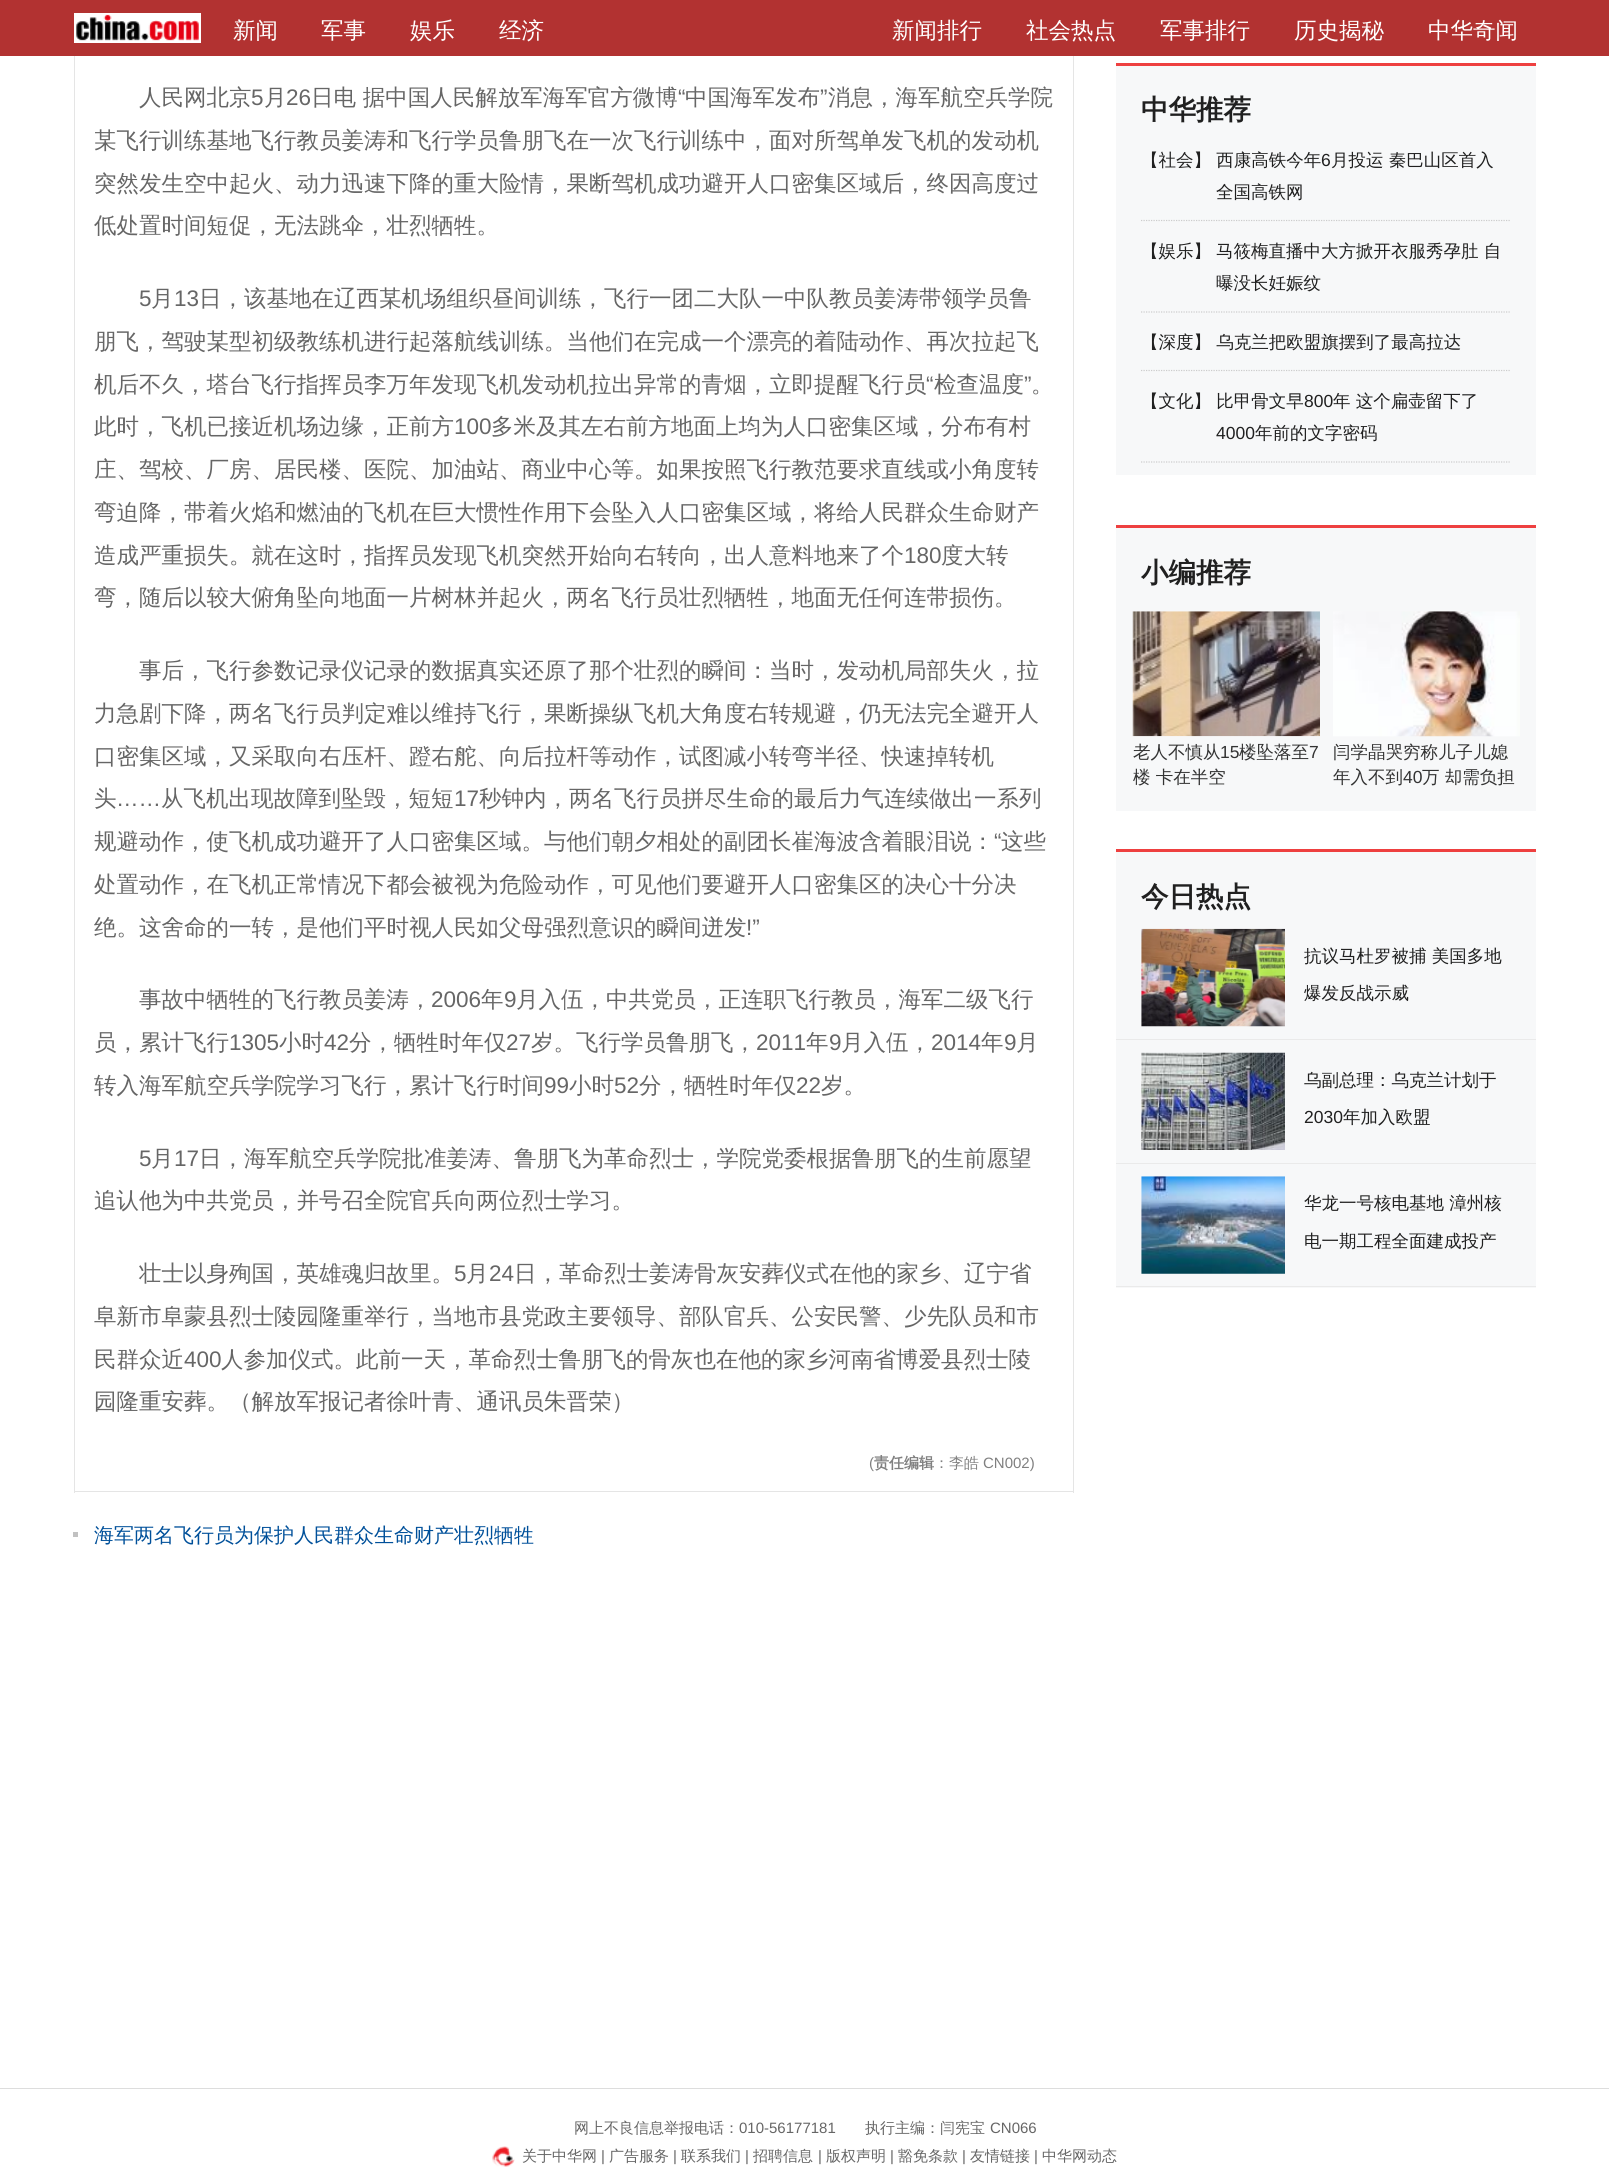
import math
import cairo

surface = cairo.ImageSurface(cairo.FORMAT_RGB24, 1609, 2175)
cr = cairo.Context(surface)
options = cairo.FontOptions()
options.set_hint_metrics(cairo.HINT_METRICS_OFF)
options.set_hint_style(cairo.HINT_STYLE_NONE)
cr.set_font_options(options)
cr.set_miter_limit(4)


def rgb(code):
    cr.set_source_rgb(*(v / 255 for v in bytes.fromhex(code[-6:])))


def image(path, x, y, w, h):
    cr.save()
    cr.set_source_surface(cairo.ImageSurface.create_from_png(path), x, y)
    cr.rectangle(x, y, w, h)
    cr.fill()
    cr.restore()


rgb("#ffffff")
cr.paint()
rgb("#b23231")
cr.rectangle(0, 0, 1609, 56)
cr.fill()
rgb("#ffffff")
cr.rectangle(74, 13, 127, 30)
cr.fill()
image("img/1.png", 76, 14, 123, 27)
for x, y, w, h, color in [
    (1073, 56, 1, 1437, "#e5e5e5"),
    (74, 56, 1, 1399, "#e5e5e5"),
    (74, 1491, 1000, 1, "#e5e5e5"),
    (74, 1454, 1, 39, "#e5e5e5"),
    (73, 1532, 5, 5, "#c1c1c1"),
    (1116, 66, 420, 409, "#f7f8f9"),
    (1116, 63, 420, 3, "#ee4040"),
]:
    rgb(color)
    cr.rectangle(x, y, w, h)
    cr.fill()
cr.new_path()
cr.move_to(1141, 220.5)
cr.line_to(1510, 220.5)
rgb("#cccccc")
cr.set_line_width(1.2)
cr.set_dash([1.25, 1.25])
cr.stroke()
cr.new_path()
cr.move_to(1141, 312)
cr.line_to(1510, 312)
cr.stroke()
cr.new_path()
cr.move_to(1141, 370.5)
cr.line_to(1510, 370.5)
cr.stroke()
cr.new_path()
cr.move_to(1141, 462)
cr.line_to(1510, 462)
cr.stroke()
rgb("#f7f8f9")
cr.rectangle(1116, 528, 420, 283)
cr.fill()
rgb("#ee4040")
cr.rectangle(1116, 525, 420, 3)
cr.fill()
image("img/2.png", 1132, 611, 188, 126)
image("img/3.png", 1333, 611, 187, 126)
for x, y, w, h, color in [
    (1116, 852, 420, 436, "#f7f8f9"),
    (1116, 849, 420, 3, "#ee4040"),
    (1116, 1039, 420, 1, "#eaeaea"),
]:
    rgb(color)
    cr.rectangle(x, y, w, h)
    cr.fill()
image("img/4.png", 1141, 928, 144, 99)
cr.rectangle(1116, 1163, 420, 1)
cr.fill()
image("img/5.png", 1141, 1052, 144, 98)
cr.rectangle(1116, 1286, 420, 1)
cr.fill()
image("img/6.png", 1141, 1176, 144, 98)
rgb("#dddddd")
cr.rectangle(0, 2088, 1609, 1)
cr.fill()
image("img/7.png", 492, 2146, 23, 21)
cr.select_font_face("WenQuanYi Zen Hei Medium")
cr.set_font_size(22.5)
rgb("#ffffff")
for x, y, s in [
    (233, 38, "新闻"),
    (321, 38, "军事"),
    (410, 38, "娱乐"),
    (499, 38, "经济"),
    (892, 38, "新闻排行"),
    (1026, 38, "社会热点"),
    (1160, 38, "军事排行"),
    (1294, 38, "历史揭秘"),
    (1428, 38, "中华奇闻"),
]:
    cr.move_to(x, y)
    cr.show_text(s)
rgb("#666666")
cr.move_to(139, 105)
cr.show_text("人民网北京")
cr.select_font_face("Liberation Sans")
cr.move_to(251, 105)
cr.show_text("5")
cr.select_font_face("WenQuanYi Zen Hei Medium")
cr.move_to(264, 105)
cr.show_text("月")
cr.select_font_face("Liberation Sans")
cr.move_to(286, 105)
cr.show_text("26")
cr.select_font_face("WenQuanYi Zen Hei Medium")
cr.move_to(311, 105)
cr.show_text("日电 据中国人民解放军海军官方微博")
cr.select_font_face("Liberation Sans")
cr.move_to(678, 105)
cr.show_text("“")
cr.select_font_face("WenQuanYi Zen Hei Medium")
cr.move_to(685, 105)
cr.show_text("中国海军发布")
cr.select_font_face("Liberation Sans")
cr.move_to(820, 105)
cr.show_text("”")
cr.select_font_face("WenQuanYi Zen Hei Medium")
for x, y, s in [
    (828, 105, "消息，海军航空兵学院"),
    (94, 148, "某飞行训练基地飞行教员姜涛和飞行学员鲁朋飞在一次飞行训练中，面对所驾单发飞机的发动机"),
    (94, 191, "突然发生空中起火、动力迅速下降的重大险情，果断驾机成功避开人口密集区域后，终因高度过"),
    (94, 233, "低处置时间短促，无法跳伞，壮烈牺牲。"),
]:
    cr.move_to(x, y)
    cr.show_text(s)
cr.select_font_face("Liberation Sans")
cr.move_to(139, 306)
cr.show_text("5")
cr.select_font_face("WenQuanYi Zen Hei Medium")
cr.move_to(151, 306)
cr.show_text("月")
cr.select_font_face("Liberation Sans")
cr.move_to(174, 306)
cr.show_text("13")
cr.select_font_face("WenQuanYi Zen Hei Medium")
for x, y, s in [
    (199, 306, "日，该基地在辽西某机场组织昼间训练，飞行一团二大队一中队教员姜涛带领学员鲁"),
    (94, 349, "朋飞，驾驶某型初级教练机进行起落航线训练。当他们在完成一个漂亮的着陆动作、再次拉起飞"),
    (94, 392, "机后不久，塔台飞行指挥员李万年发现飞机发动机拉出异常的青烟，立即提醒飞行员"),
]:
    cr.move_to(x, y)
    cr.show_text(s)
cr.select_font_face("Liberation Sans")
cr.move_to(926, 392)
cr.show_text("“")
cr.select_font_face("WenQuanYi Zen Hei Medium")
cr.move_to(934, 392)
cr.show_text("检查温度")
cr.select_font_face("Liberation Sans")
cr.move_to(1024, 392)
cr.show_text("”")
cr.select_font_face("WenQuanYi Zen Hei Medium")
cr.move_to(1031, 392)
cr.show_text("。")
cr.move_to(94, 434)
cr.show_text("此时，飞机已接近机场边缘，正前方")
cr.select_font_face("Liberation Sans")
cr.move_to(454, 434)
cr.show_text("100")
cr.select_font_face("WenQuanYi Zen Hei Medium")
for x, y, s in [
    (491, 434, "多米及其左右前方地面上均为人口密集区域，分布有村"),
    (94, 477, "庄、驾校、厂房、居民楼、医院、加油站、商业中心等。如果按照飞行教范要求直线或小角度转"),
    (94, 520, "弯迫降，带着火焰和燃油的飞机在巨大惯性作用下会坠入人口密集区域，将给人民群众生命财产"),
    (94, 563, "造成严重损失。就在这时，指挥员发现飞机突然开始向右转向，出人意料地来了个"),
]:
    cr.move_to(x, y)
    cr.show_text(s)
cr.select_font_face("Liberation Sans")
cr.move_to(904, 563)
cr.show_text("180")
cr.select_font_face("WenQuanYi Zen Hei Medium")
for x, y, s in [
    (941, 563, "度大转"),
    (94, 605, "弯，随后以较大俯角坠向地面一片树林并起火，两名飞行员壮烈牺牲，地面无任何连带损伤。"),
    (139, 678, "事后，飞行参数记录仪记录的数据真实还原了那个壮烈的瞬间：当时，发动机局部失火，拉"),
    (94, 721, "力急剧下降，两名飞行员判定难以维持飞行，果断操纵飞机大角度右转规避，仍无法完全避开人"),
    (94, 764, "口密集区域，又采取向右压杆、蹬右舵、向后拉杆等动作，试图减小转弯半径、快速掉转机"),
    (94, 806, "头"),
]:
    cr.move_to(x, y)
    cr.show_text(s)
cr.select_font_face("Liberation Sans")
cr.move_to(116, 806)
cr.show_text("……")
cr.select_font_face("WenQuanYi Zen Hei Medium")
cr.move_to(161, 806)
cr.show_text("从飞机出现故障到坠毁，短短")
cr.select_font_face("Liberation Sans")
cr.move_to(454, 806)
cr.show_text("17")
cr.select_font_face("WenQuanYi Zen Hei Medium")
cr.move_to(479, 806)
cr.show_text("秒钟内，两名飞行员拼尽生命的最后力气连续做出一系列")
cr.move_to(94, 849)
cr.show_text("规避动作，使飞机成功避开了人口密集区域。与他们朝夕相处的副团长崔海波含着眼泪说：")
cr.select_font_face("Liberation Sans")
cr.move_to(994, 849)
cr.show_text("“")
cr.select_font_face("WenQuanYi Zen Hei Medium")
for x, y, s in [
    (1001, 849, "这些"),
    (94, 892, "处置动作，在飞机正常情况下都会被视为危险动作，可见他们要避开人口密集区的决心十分决"),
    (94, 935, "绝。这舍命的一转，是他们平时视人民如父母强烈意识的瞬间迸发"),
]:
    cr.move_to(x, y)
    cr.show_text(s)
cr.select_font_face("Liberation Sans")
cr.move_to(746, 935)
cr.show_text("!”")
cr.select_font_face("WenQuanYi Zen Hei Medium")
cr.move_to(139, 1007)
cr.show_text("事故中牺牲的飞行教员姜涛，")
cr.select_font_face("Liberation Sans")
cr.move_to(431, 1007)
cr.show_text("2006")
cr.select_font_face("WenQuanYi Zen Hei Medium")
cr.move_to(481, 1007)
cr.show_text("年")
cr.select_font_face("Liberation Sans")
cr.move_to(504, 1007)
cr.show_text("9")
cr.select_font_face("WenQuanYi Zen Hei Medium")
cr.move_to(516, 1007)
cr.show_text("月入伍，中共党员，正连职飞行教员，海军二级飞行")
cr.move_to(94, 1050)
cr.show_text("员，累计飞行")
cr.select_font_face("Liberation Sans")
cr.move_to(229, 1050)
cr.show_text("1305")
cr.select_font_face("WenQuanYi Zen Hei Medium")
cr.move_to(279, 1050)
cr.show_text("小时")
cr.select_font_face("Liberation Sans")
cr.move_to(324, 1050)
cr.show_text("42")
cr.select_font_face("WenQuanYi Zen Hei Medium")
cr.move_to(349, 1050)
cr.show_text("分，牺牲时年仅")
cr.select_font_face("Liberation Sans")
cr.move_to(506, 1050)
cr.show_text("27")
cr.select_font_face("WenQuanYi Zen Hei Medium")
cr.move_to(531, 1050)
cr.show_text("岁。飞行学员鲁朋飞，")
cr.select_font_face("Liberation Sans")
cr.move_to(756, 1050)
cr.show_text("2011")
cr.select_font_face("WenQuanYi Zen Hei Medium")
cr.move_to(806, 1050)
cr.show_text("年")
cr.select_font_face("Liberation Sans")
cr.move_to(829, 1050)
cr.show_text("9")
cr.select_font_face("WenQuanYi Zen Hei Medium")
cr.move_to(841, 1050)
cr.show_text("月入伍，")
cr.select_font_face("Liberation Sans")
cr.move_to(931, 1050)
cr.show_text("2014")
cr.select_font_face("WenQuanYi Zen Hei Medium")
cr.move_to(981, 1050)
cr.show_text("年")
cr.select_font_face("Liberation Sans")
cr.move_to(1004, 1050)
cr.show_text("9")
cr.select_font_face("WenQuanYi Zen Hei Medium")
cr.move_to(1016, 1050)
cr.show_text("月")
cr.move_to(94, 1093)
cr.show_text("转入海军航空兵学院学习飞行，累计飞行时间")
cr.select_font_face("Liberation Sans")
cr.move_to(544, 1093)
cr.show_text("99")
cr.select_font_face("WenQuanYi Zen Hei Medium")
cr.move_to(569, 1093)
cr.show_text("小时")
cr.select_font_face("Liberation Sans")
cr.move_to(614, 1093)
cr.show_text("52")
cr.select_font_face("WenQuanYi Zen Hei Medium")
cr.move_to(639, 1093)
cr.show_text("分，牺牲时年仅")
cr.select_font_face("Liberation Sans")
cr.move_to(796, 1093)
cr.show_text("22")
cr.select_font_face("WenQuanYi Zen Hei Medium")
cr.move_to(821, 1093)
cr.show_text("岁。")
cr.select_font_face("Liberation Sans")
cr.move_to(139, 1166)
cr.show_text("5")
cr.select_font_face("WenQuanYi Zen Hei Medium")
cr.move_to(151, 1166)
cr.show_text("月")
cr.select_font_face("Liberation Sans")
cr.move_to(174, 1166)
cr.show_text("17")
cr.select_font_face("WenQuanYi Zen Hei Medium")
for x, y, s in [
    (199, 1166, "日，海军航空兵学院批准姜涛、鲁朋飞为革命烈士，学院党委根据鲁朋飞的生前愿望"),
    (94, 1208, "追认他为中共党员，并号召全院官兵向两位烈士学习。"),
    (139, 1281, "壮士以身殉国，英雄魂归故里。"),
]:
    cr.move_to(x, y)
    cr.show_text(s)
cr.select_font_face("Liberation Sans")
cr.move_to(454, 1281)
cr.show_text("5")
cr.select_font_face("WenQuanYi Zen Hei Medium")
cr.move_to(466, 1281)
cr.show_text("月")
cr.select_font_face("Liberation Sans")
cr.move_to(489, 1281)
cr.show_text("24")
cr.select_font_face("WenQuanYi Zen Hei Medium")
for x, y, s in [
    (514, 1281, "日，革命烈士姜涛骨灰安葬仪式在他的家乡、辽宁省"),
    (94, 1324, "阜新市阜蒙县烈士陵园隆重举行，当地市县党政主要领导、部队官兵、公安民警、少先队员和市"),
    (94, 1367, "民群众近"),
]:
    cr.move_to(x, y)
    cr.show_text(s)
cr.select_font_face("Liberation Sans")
cr.move_to(184, 1367)
cr.show_text("400")
cr.select_font_face("WenQuanYi Zen Hei Medium")
cr.move_to(221, 1367)
cr.show_text("人参加仪式。此前一天，革命烈士鲁朋飞的骨灰也在他的家乡河南省博爱县烈士陵")
cr.move_to(94, 1409)
cr.show_text("园隆重安葬。（解放军报记者徐叶青、通讯员朱晋荣）")
cr.select_font_face("Liberation Sans")
cr.set_font_size(15)
rgb("#808080")
cr.move_to(869, 1468)
cr.show_text("(")
cr.select_font_face("WenQuanYi Zen Hei", cairo.FONT_SLANT_NORMAL, cairo.FONT_WEIGHT_BOLD)
cr.move_to(874, 1468)
cr.show_text("责任编辑")
cr.select_font_face("WenQuanYi Zen Hei Medium")
cr.move_to(934, 1468)
cr.show_text("：李皓")
cr.select_font_face("Liberation Sans")
cr.move_to(983, 1468)
cr.show_text("CN002)")
cr.select_font_face("WenQuanYi Zen Hei Medium")
cr.set_font_size(20)
rgb("#00509a")
cr.move_to(94, 1542)
cr.show_text("海军两名飞行员为保护人民群众生命财产壮烈牺牲")
cr.select_font_face("WenQuanYi Zen Hei", cairo.FONT_SLANT_NORMAL, cairo.FONT_WEIGHT_BOLD)
cr.set_font_size(27.5)
rgb("#202020")
cr.move_to(1141, 119)
cr.show_text("中华推荐")
cr.select_font_face("WenQuanYi Zen Hei Medium")
cr.set_font_size(17.5)
cr.move_to(1141, 166)
cr.show_text("【社会】 西康高铁今年")
cr.select_font_face("Liberation Sans")
cr.move_to(1321, 166)
cr.show_text("6")
cr.select_font_face("WenQuanYi Zen Hei Medium")
for x, y, s in [
    (1331, 166, "月投运 秦巴山区首入"),
    (1216, 198, "全国高铁网"),
    (1141, 257, "【娱乐】"),
    (1216, 257, "马筱梅直播中大方掀开衣服秀孕肚 自"),
    (1216, 289, "曝没长妊娠纹"),
    (1141, 348, "【深度】 乌克兰把欧盟旗摆到了最高拉达"),
    (1141, 407, "【文化】 比甲骨文早"),
]:
    cr.move_to(x, y)
    cr.show_text(s)
cr.select_font_face("Liberation Sans")
cr.move_to(1304, 407)
cr.show_text("800")
cr.select_font_face("WenQuanYi Zen Hei Medium")
cr.move_to(1333, 407)
cr.show_text("年 这个扁壶留下了")
cr.select_font_face("Liberation Sans")
cr.move_to(1216, 439)
cr.show_text("4000")
cr.select_font_face("WenQuanYi Zen Hei Medium")
cr.move_to(1255, 439)
cr.show_text("年前的文字密码")
cr.select_font_face("WenQuanYi Zen Hei", cairo.FONT_SLANT_NORMAL, cairo.FONT_WEIGHT_BOLD)
cr.set_font_size(27.5)
cr.move_to(1141, 582)
cr.show_text("小编推荐")
cr.select_font_face("WenQuanYi Zen Hei Medium")
cr.set_font_size(17.5)
rgb("#333333")
cr.move_to(1133, 758)
cr.show_text("老人不慎从")
cr.select_font_face("Liberation Sans")
cr.move_to(1220, 758)
cr.show_text("15")
cr.select_font_face("WenQuanYi Zen Hei Medium")
cr.move_to(1239, 758)
cr.show_text("楼坠落至")
cr.select_font_face("Liberation Sans")
cr.move_to(1309, 758)
cr.show_text("7")
cr.select_font_face("WenQuanYi Zen Hei Medium")
for x, y, s in [
    (1133, 783, "楼 卡在半空"),
    (1333, 758, "闫学晶哭穷称儿子儿媳"),
    (1333, 783, "年入不到"),
]:
    cr.move_to(x, y)
    cr.show_text(s)
cr.select_font_face("Liberation Sans")
cr.move_to(1403, 783)
cr.show_text("40")
cr.select_font_face("WenQuanYi Zen Hei Medium")
cr.move_to(1422, 783)
cr.show_text("万 却需负担")
cr.select_font_face("WenQuanYi Zen Hei", cairo.FONT_SLANT_NORMAL, cairo.FONT_WEIGHT_BOLD)
cr.set_font_size(27.5)
rgb("#202020")
cr.move_to(1141, 906)
cr.show_text("今日热点")
cr.select_font_face("WenQuanYi Zen Hei Medium")
cr.set_font_size(17.5)
for x, y, s in [
    (1304, 962, "抗议马杜罗被捕 美国多地"),
    (1304, 999, "爆发反战示威"),
    (1304, 1086, "乌副总理：乌克兰计划于"),
]:
    cr.move_to(x, y)
    cr.show_text(s)
cr.select_font_face("Liberation Sans")
cr.move_to(1304, 1123)
cr.show_text("2030")
cr.select_font_face("WenQuanYi Zen Hei Medium")
for x, y, s in [
    (1343, 1123, "年加入欧盟"),
    (1304, 1209, "华龙一号核电基地 漳州核"),
    (1304, 1247, "电一期工程全面建成投产"),
]:
    cr.move_to(x, y)
    cr.show_text(s)
cr.set_font_size(15)
rgb("#666666")
cr.move_to(574, 2133)
cr.show_text("网上不良信息举报电话：")
cr.select_font_face("Liberation Sans")
cr.move_to(739, 2133)
cr.show_text("010-56177181")
cr.select_font_face("WenQuanYi Zen Hei Medium")
cr.move_to(865, 2133)
cr.show_text("执行主编：闫宪宝")
cr.select_font_face("Liberation Sans")
cr.move_to(990, 2133)
cr.show_text("CN066")
cr.select_font_face("WenQuanYi Zen Hei Medium")
cr.move_to(522, 2161)
cr.show_text("关于中华网")
cr.select_font_face("Liberation Sans")
cr.move_to(601, 2161)
cr.show_text("|")
cr.select_font_face("WenQuanYi Zen Hei Medium")
cr.move_to(609, 2161)
cr.show_text("广告服务")
cr.select_font_face("Liberation Sans")
cr.move_to(673, 2161)
cr.show_text("|")
cr.select_font_face("WenQuanYi Zen Hei Medium")
cr.move_to(681, 2161)
cr.show_text("联系我们")
cr.select_font_face("Liberation Sans")
cr.move_to(745, 2161)
cr.show_text("|")
cr.select_font_face("WenQuanYi Zen Hei Medium")
cr.move_to(753, 2161)
cr.show_text("招聘信息")
cr.select_font_face("Liberation Sans")
cr.move_to(818, 2161)
cr.show_text("|")
cr.select_font_face("WenQuanYi Zen Hei Medium")
cr.move_to(826, 2161)
cr.show_text("版权声明")
cr.select_font_face("Liberation Sans")
cr.move_to(890, 2161)
cr.show_text("|")
cr.select_font_face("WenQuanYi Zen Hei Medium")
cr.move_to(898, 2161)
cr.show_text("豁免条款")
cr.select_font_face("Liberation Sans")
cr.move_to(962, 2161)
cr.show_text("|")
cr.select_font_face("WenQuanYi Zen Hei Medium")
cr.move_to(970, 2161)
cr.show_text("友情链接")
cr.select_font_face("Liberation Sans")
cr.move_to(1034, 2161)
cr.show_text("|")
cr.select_font_face("WenQuanYi Zen Hei Medium")
cr.move_to(1042, 2161)
cr.show_text("中华网动态")
surface.write_to_png("page.png")
